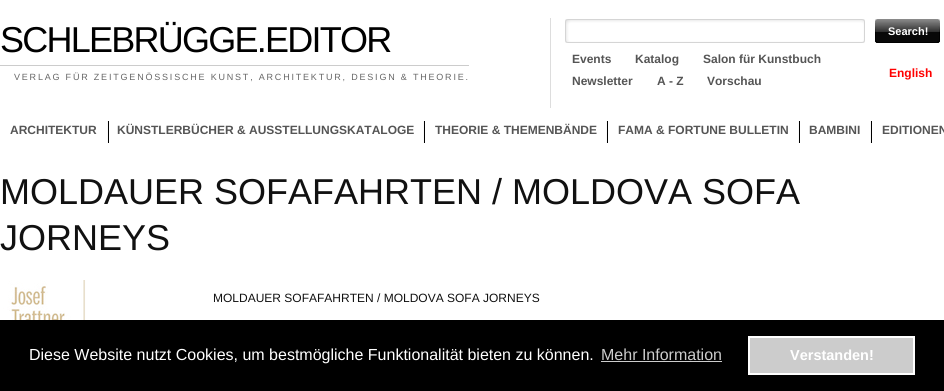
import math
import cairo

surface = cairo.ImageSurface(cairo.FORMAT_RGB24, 944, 391)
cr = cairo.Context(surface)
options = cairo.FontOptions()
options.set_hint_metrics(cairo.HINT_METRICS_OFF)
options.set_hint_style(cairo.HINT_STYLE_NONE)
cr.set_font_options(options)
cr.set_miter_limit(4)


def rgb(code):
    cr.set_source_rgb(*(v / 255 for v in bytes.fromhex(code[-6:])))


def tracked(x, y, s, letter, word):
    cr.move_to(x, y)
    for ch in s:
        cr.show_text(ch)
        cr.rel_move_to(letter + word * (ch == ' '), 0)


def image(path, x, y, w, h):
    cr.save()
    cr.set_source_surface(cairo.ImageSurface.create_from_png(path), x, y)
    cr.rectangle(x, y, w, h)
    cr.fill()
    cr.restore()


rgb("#ffffff")
cr.paint()
rgb("#cccccc")
cr.rectangle(0, 65, 469, 1)
cr.fill()
rgb("#dddddd")
cr.rectangle(550, 18, 1, 90)
cr.fill()
image("img/1.png", 565, 19, 300, 24)
image("img/2.png", 875, 19, 65, 24)
for x, y, w, h, color in [
    (107, 121, 1, 22, "#f9f9f9"),
    (423, 121, 1, 22, "#f9f9f9"),
    (108, 121, 1, 22, "#000000"),
    (606, 121, 1, 22, "#f9f9f9"),
    (424, 121, 1, 22, "#000000"),
    (798, 121, 1, 22, "#f9f9f9"),
    (607, 121, 1, 22, "#000000"),
    (870, 121, 1, 22, "#f9f9f9"),
    (799, 121, 1, 22, "#000000"),
    (871, 121, 1, 22, "#000000"),
]:
    rgb(color)
    cr.rectangle(x, y, w, h)
    cr.fill()
image("img/3.png", 0, 280, 168, 40)
cr.rectangle(0, 320, 944, 71)
cr.fill()
rgb("#cccccc")
cr.rectangle(601, 361, 121, 1)
cr.fill()
cr.rectangle(749, 337, 165, 37)
cr.fill_preserve()
rgb("#ffffff")
cr.stroke()
cr.select_font_face("Liberation Sans")
cr.set_font_size(36)
rgb("#000000")
tracked(0, 52, "SCHLEBRÜGGE.EDITOR", -1.75, 0)
cr.set_font_size(9)
rgb("#666666")
tracked(14, 80, "VERLAG FÜR ZEITGENÖSSISCHE KUNST, ARCHITEKTUR, DESIGN & THEORIE.", 1.8, 0)
cr.select_font_face("Liberation Sans", cairo.FONT_SLANT_NORMAL, cairo.FONT_WEIGHT_BOLD)
cr.set_font_size(11)
rgb("#ffffff")
cr.move_to(888, 35)
cr.show_text("Search!")
cr.set_font_size(12)
rgb("#555555")
for x, y, s in [
    (572, 63, "Events"),
    (635, 63, "Katalog"),
    (703, 63, "Salon für Kunstbuch"),
    (572, 85, "Newsletter"),
    (657, 85, "A - Z"),
    (707, 85, "Vorschau"),
]:
    cr.move_to(x, y)
    cr.show_text(s)
rgb("#ff0000")
cr.move_to(889, 77)
cr.show_text("English")
rgb("#555555")
for x, y, s in [
    (10, 134, "ARCHITEKTUR"),
    (117, 134, "KÜNSTLERBÜCHER & AUSSTELLUNGSKATALOGE"),
    (435, 134, "THEORIE & THEMENBÄNDE"),
    (618, 134, "FAMA & FORTUNE BULLETIN"),
    (809, 134, "BAMBINI"),
    (882, 134, "EDITIONEN"),
]:
    cr.move_to(x, y)
    cr.show_text(s)
cr.select_font_face("Liberation Sans")
cr.set_font_size(36)
rgb("#111111")
cr.move_to(0, 204)
cr.show_text("MOLDAUER SOFAFAHRTEN / MOLDOVA SOFA")
cr.move_to(0, 250)
cr.show_text("JORNEYS")
cr.set_font_size(12)
cr.move_to(213, 302)
cr.show_text("MOLDAUER SOFAFAHRTEN / MOLDOVA SOFA JORNEYS")
cr.set_font_size(16)
rgb("#ffffff")
cr.move_to(29, 360)
cr.show_text("Diese Website nutzt Cookies, um bestmögliche Funktionalität bieten zu können.")
rgb("#cccccc")
cr.move_to(601, 360)
cr.show_text("Mehr Information")
cr.select_font_face("Liberation Sans", cairo.FONT_SLANT_NORMAL, cairo.FONT_WEIGHT_BOLD)
cr.set_font_size(14.5)
rgb("#ffffff")
cr.move_to(790, 360)
cr.show_text("Verstanden!")
surface.write_to_png("page.png")
